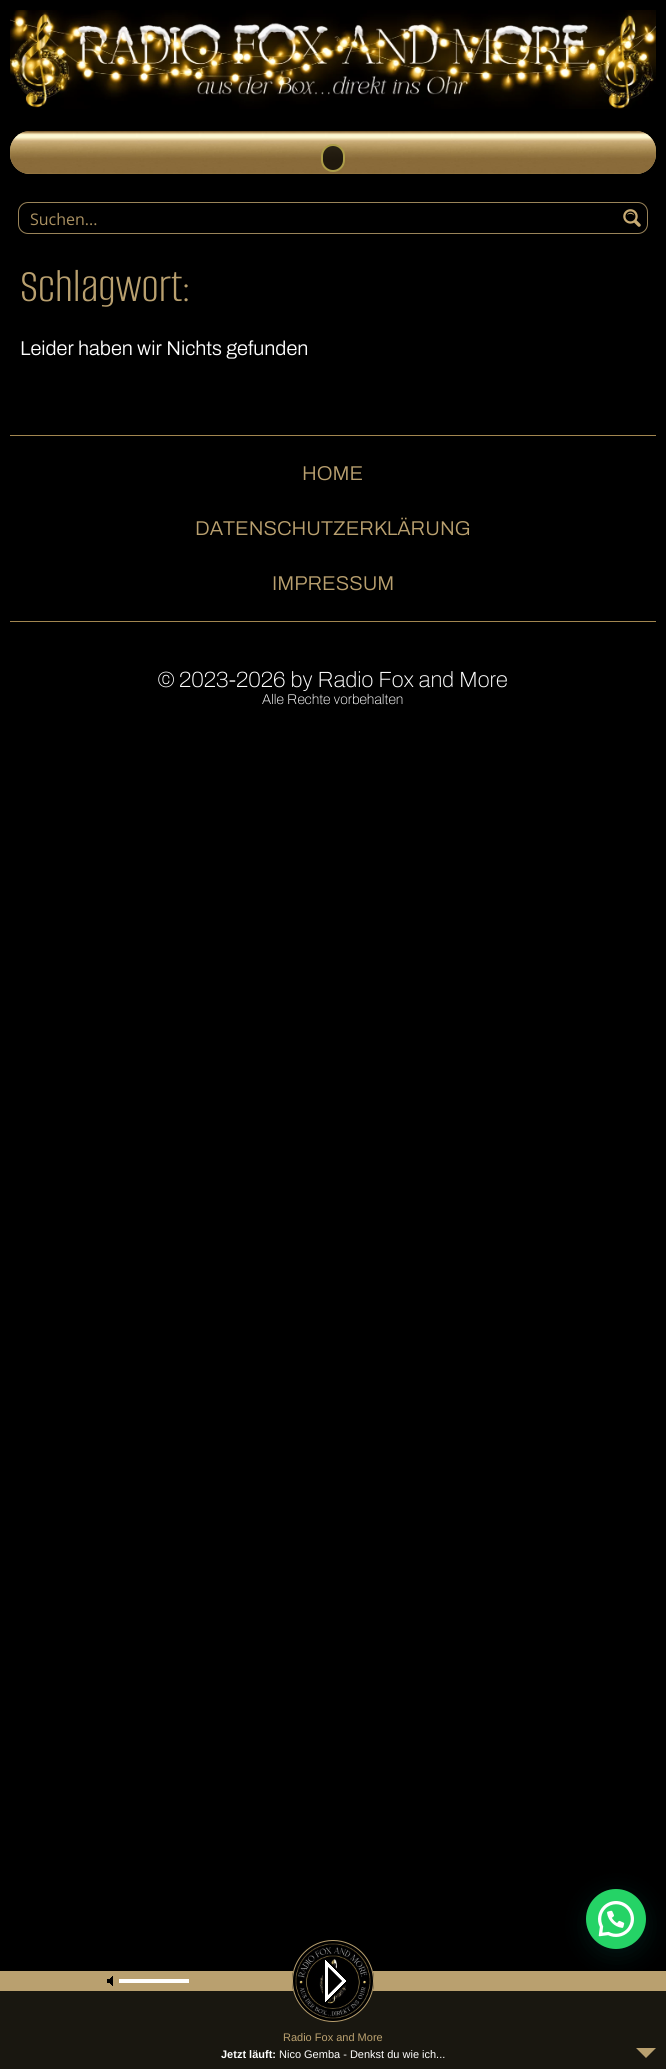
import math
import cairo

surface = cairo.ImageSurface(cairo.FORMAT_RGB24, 666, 2069)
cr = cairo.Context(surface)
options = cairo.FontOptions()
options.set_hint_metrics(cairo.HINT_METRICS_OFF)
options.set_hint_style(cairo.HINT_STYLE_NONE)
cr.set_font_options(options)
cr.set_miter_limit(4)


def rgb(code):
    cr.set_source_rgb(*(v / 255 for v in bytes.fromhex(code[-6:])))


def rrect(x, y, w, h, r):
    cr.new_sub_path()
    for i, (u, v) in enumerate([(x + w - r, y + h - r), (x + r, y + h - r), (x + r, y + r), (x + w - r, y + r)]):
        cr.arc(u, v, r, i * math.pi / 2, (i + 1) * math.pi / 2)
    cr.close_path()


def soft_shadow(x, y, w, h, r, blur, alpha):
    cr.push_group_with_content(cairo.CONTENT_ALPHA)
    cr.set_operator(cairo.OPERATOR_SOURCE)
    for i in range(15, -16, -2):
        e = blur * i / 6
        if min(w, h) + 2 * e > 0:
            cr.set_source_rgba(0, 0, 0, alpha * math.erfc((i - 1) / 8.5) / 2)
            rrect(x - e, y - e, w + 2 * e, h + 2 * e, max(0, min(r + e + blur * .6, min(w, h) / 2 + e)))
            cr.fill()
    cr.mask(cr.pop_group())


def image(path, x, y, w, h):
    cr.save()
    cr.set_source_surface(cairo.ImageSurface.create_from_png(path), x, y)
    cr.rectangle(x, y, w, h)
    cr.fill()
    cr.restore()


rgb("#000000")
cr.paint()
image("img/1.png", 10, 10, 646, 99)
rgb("#b9a06f")
rrect(10, 131, 646, 43, 20)
cr.fill()
image("img/2.png", 10, 131, 646, 43)
cr.set_source_rgba(0, 0, 0, 0.77)
rrect(322, 145, 22, 26, 11)
cr.fill_preserve()
rgb("#ac9d48")
cr.stroke()
rrect(18.5, 202.5, 629, 31, 9.5)
rgb("#9a8459")
cr.set_line_width(1)
cr.stroke()
image("img/3.png", 623, 209, 18, 18)
rgb("#a28650")
cr.rectangle(10, 435, 646, 1)
cr.fill()
cr.rectangle(10, 621, 646, 1)
cr.fill()
rgb("#075e54")
soft_shadow(587, 1895, 60, 60, 30, 12, 0.24)
rgb("#25d366")
cr.arc(616, 1919, 30, 0, 2 * math.pi)
cr.fill()
image("img/4.png", 598, 1901, 36, 36)
rgb("#b9a06f")
cr.rectangle(0, 1971, 666, 20)
cr.fill()
rgb("#191710")
cr.rectangle(0, 1991, 666, 78)
cr.fill()
rgb("#000000")
cr.arc(333, 1981, 41, 0, 2 * math.pi)
cr.fill()
image("img/5.png", 293, 1943, 80, 78)
cr.arc(333, 1981, 40.5, 0, 2 * math.pi)
rgb("#b9a06f")
cr.stroke()
image("img/6.png", 107, 1976, 6, 10)
rgb("#ffffff")
cr.rectangle(119, 1979, 70, 4)
cr.fill()
image("img/7.png", 323, 1960, 23, 43)
rgb("#b9a06f")
cr.new_path()
cr.move_to(636, 2048)
cr.line_to(656, 2048)
cr.line_to(646, 2058)
cr.close_path()
cr.fill()
cr.select_font_face("Open Sans")
cr.set_font_size(16)
rgb("#aa9162")
cr.move_to(30, 225)
cr.show_text("Suchen...")
cr.select_font_face("Alumni Sans Light")
cr.set_font_size(49)
rgb("#b9a06f")
cr.move_to(20, 301)
cr.show_text("Schlagwort:")
cr.select_font_face("Archivo Light")
cr.set_font_size(20)
rgb("#ffffff")
cr.move_to(20, 355)
cr.show_text("Leider haben wir Nichts gefunden")
rgb("#b9a06f")
for x, y, s in [
    (302, 480, "HOME"),
    (195, 535, "DATENSCHUTZERKLÄRUNG"),
    (272, 590, "IMPRESSUM"),
]:
    cr.move_to(x, y)
    cr.show_text(s)
cr.select_font_face("Archivo Thin")
cr.set_font_size(22)
rgb("#ffffff")
cr.move_to(158, 687)
cr.show_text("© 2023-2026 by Radio Fox and More")
cr.set_font_size(14)
cr.move_to(262, 704)
cr.show_text("Alle Rechte vorbehalten")
cr.select_font_face("Liberation Sans")
cr.set_font_size(11)
rgb("#b9a06f")
cr.move_to(283, 2041)
cr.show_text("Radio Fox and More")
cr.select_font_face("Liberation Sans", cairo.FONT_SLANT_NORMAL, cairo.FONT_WEIGHT_BOLD)
rgb("#ffffff")
cr.move_to(221, 2058)
cr.show_text("Jetzt läuft:")
cr.select_font_face("Liberation Sans")
cr.move_to(279, 2058)
cr.show_text("Nico Gemba - Denkst du wie ich...")
surface.write_to_png("page.png")
